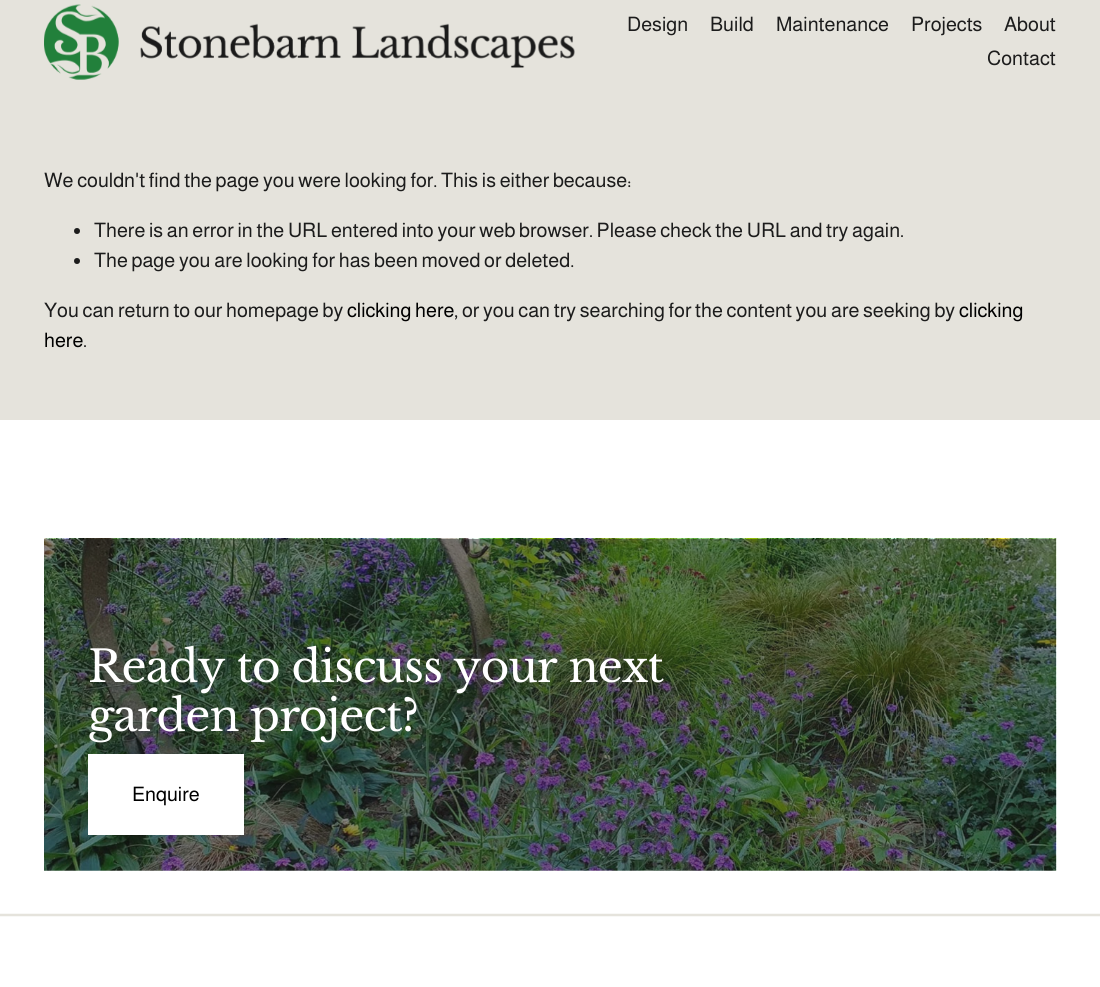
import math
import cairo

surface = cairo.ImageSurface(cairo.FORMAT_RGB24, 1100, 987)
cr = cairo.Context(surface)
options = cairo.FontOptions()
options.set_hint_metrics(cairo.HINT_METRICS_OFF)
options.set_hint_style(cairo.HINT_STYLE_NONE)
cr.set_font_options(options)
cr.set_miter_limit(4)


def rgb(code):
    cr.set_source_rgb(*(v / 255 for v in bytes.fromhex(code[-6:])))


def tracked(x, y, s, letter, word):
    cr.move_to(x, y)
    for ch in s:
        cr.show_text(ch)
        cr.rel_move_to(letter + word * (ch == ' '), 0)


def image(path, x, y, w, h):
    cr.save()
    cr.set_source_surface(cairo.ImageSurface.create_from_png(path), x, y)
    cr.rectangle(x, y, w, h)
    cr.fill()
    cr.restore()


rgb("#e5e3dc")
cr.paint()
image("img/1.png", 44, 4, 531, 76)
rgb("#1c1c1c")
cr.arc(77, 231, 3, 0, 2 * math.pi)
cr.fill()
cr.arc(77, 261, 3, 0, 2 * math.pi)
cr.fill()
rgb("#ffffff")
cr.rectangle(0, 420, 1100, 494)
cr.fill()
image("img/2.png", 44, 538, 1013, 333)
cr.rectangle(88, 754, 156, 81)
cr.fill()
cr.rectangle(0, 916, 1100, 71)
cr.fill()
cr.new_path()
cr.move_to(-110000, 667.5)
cr.line_to(-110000, 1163)
cr.move_to(0, 915)
cr.line_to(1100, 915)
rgb("#e5e3dc")
cr.set_line_width(2.5)
cr.set_line_cap(cairo.LINE_CAP_SQUARE)
cr.stroke()
cr.select_font_face("Almarai")
cr.set_font_size(20)
rgb("#1c1c1c")
for x, y, s in [
    (627, 31, "Design"),
    (710, 31, "Build"),
    (776, 31, "Maintenance"),
    (911, 31, "Projects"),
    (1004, 31, "About"),
    (987, 65, "Contact"),
    (44, 187, "We couldn't find the page you were looking for. This is either because:"),
    (94, 237, "There is an error in the URL entered into your web browser. Please check the URL and try again."),
    (94, 267, "The page you are looking for has been moved or deleted."),
    (44, 317, "You can return to our homepage by"),
]:
    cr.move_to(x, y)
    cr.show_text(s)
rgb("#000000")
cr.move_to(347, 317)
cr.show_text("clicking here")
rgb("#1c1c1c")
cr.move_to(454, 317)
cr.show_text(", or you can try searching for the content you are seeking by")
rgb("#000000")
cr.move_to(959, 317)
cr.show_text("clicking")
cr.move_to(44, 347)
cr.show_text("here")
rgb("#1c1c1c")
cr.move_to(83, 347)
cr.show_text(".")
cr.select_font_face("Libre Baskerville")
cr.set_font_size(43.75)
rgb("#ffffff")
tracked(88, 682, "Ready to discuss your next", -0.9, 0)
tracked(88, 731, "garden project?", -0.9, 0)
cr.select_font_face("Almarai")
cr.set_font_size(20)
rgb("#000000")
cr.move_to(132, 801)
cr.show_text("Enquire")
surface.write_to_png("page.png")
